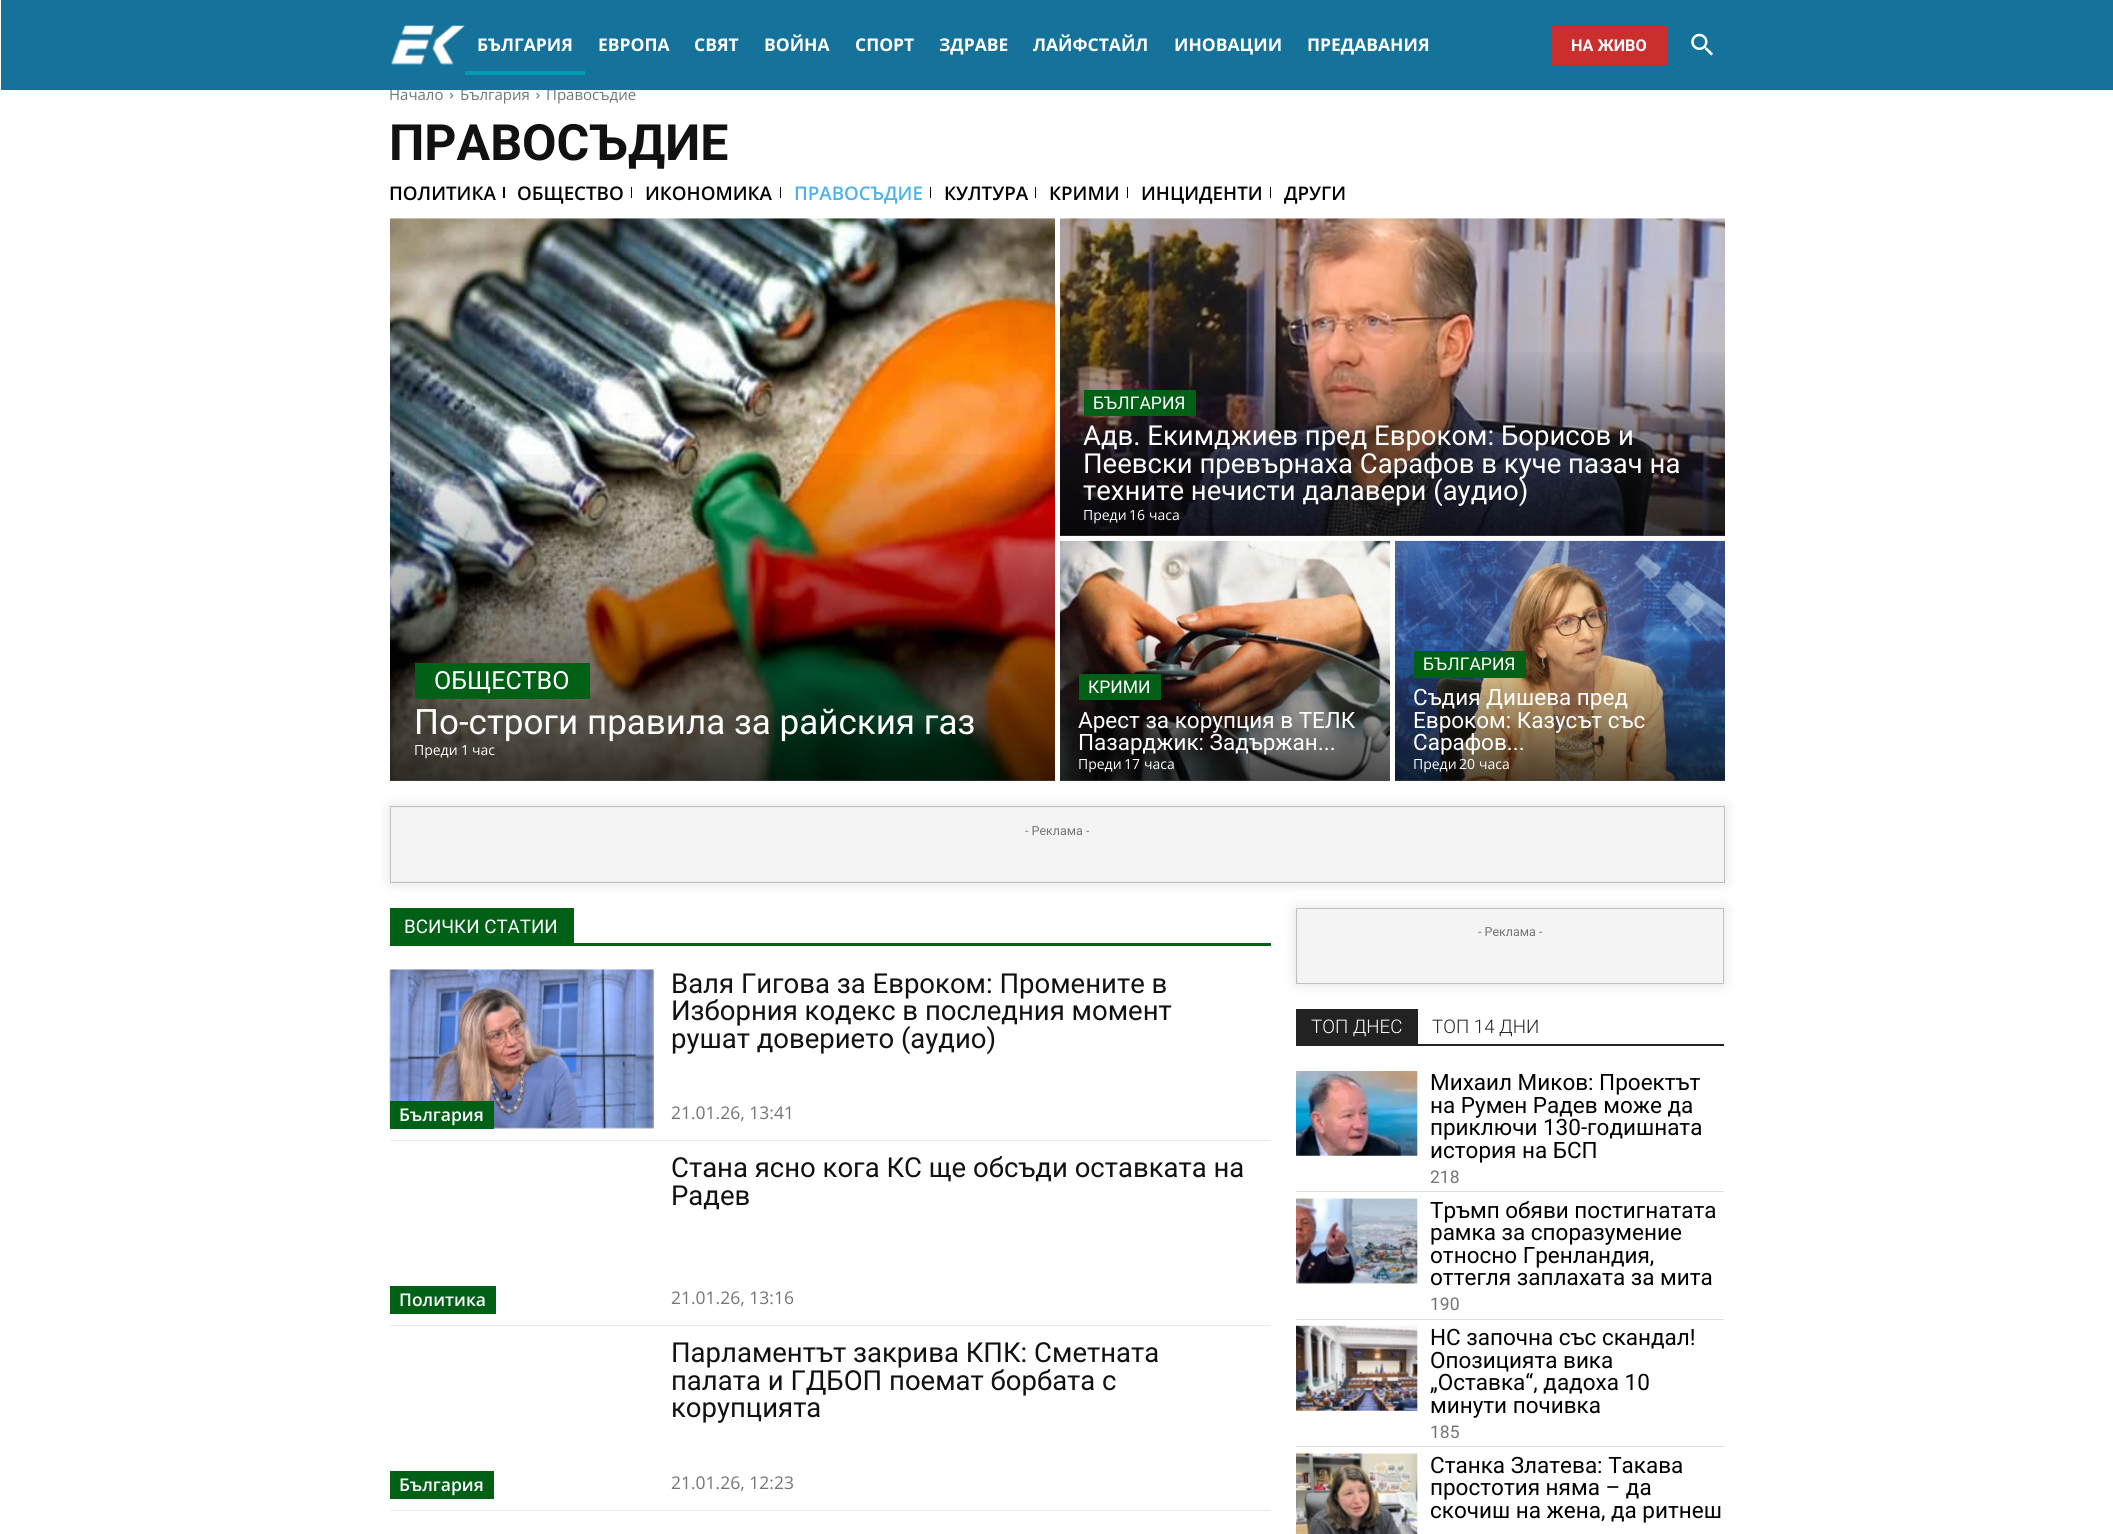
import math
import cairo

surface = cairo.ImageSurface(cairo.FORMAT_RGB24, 2113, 1534)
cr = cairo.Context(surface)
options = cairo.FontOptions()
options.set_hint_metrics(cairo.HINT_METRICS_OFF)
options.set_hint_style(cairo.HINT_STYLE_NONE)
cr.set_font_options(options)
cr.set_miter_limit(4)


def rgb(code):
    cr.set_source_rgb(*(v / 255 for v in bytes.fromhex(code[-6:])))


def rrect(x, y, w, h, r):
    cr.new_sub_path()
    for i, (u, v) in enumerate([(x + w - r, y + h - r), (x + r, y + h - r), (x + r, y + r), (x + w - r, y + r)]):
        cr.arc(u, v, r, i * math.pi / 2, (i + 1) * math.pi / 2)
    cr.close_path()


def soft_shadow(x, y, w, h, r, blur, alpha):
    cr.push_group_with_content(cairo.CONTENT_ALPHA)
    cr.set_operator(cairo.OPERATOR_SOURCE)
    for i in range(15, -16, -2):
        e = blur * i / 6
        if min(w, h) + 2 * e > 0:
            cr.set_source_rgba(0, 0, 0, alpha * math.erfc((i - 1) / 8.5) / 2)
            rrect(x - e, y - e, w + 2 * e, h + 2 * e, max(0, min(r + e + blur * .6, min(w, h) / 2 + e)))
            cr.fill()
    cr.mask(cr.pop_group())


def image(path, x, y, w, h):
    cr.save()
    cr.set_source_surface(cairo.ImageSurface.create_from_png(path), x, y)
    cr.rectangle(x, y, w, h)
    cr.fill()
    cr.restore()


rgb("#ffffff")
cr.paint()
image("img/3.png", 450, 92, 4, 7)
image("img/4.png", 536, 92, 4, 7)
for x, y, w, h, color in [
    (503, 187, 2, 11, "#000000"),
    (631, 187, 1, 11, "#000000"),
    (780, 187, 1, 11, "#000000"),
    (930, 187, 1, 11, "#000000"),
    (1035, 187, 1, 11, "#000000"),
    (1127, 187, 1, 11, "#000000"),
    (1270, 187, 1, 11, "#000000"),
]:
    rgb(color)
    cr.rectangle(x, y, w, h)
    cr.fill()
image("img/5.png", 390, 218, 665, 563)
gradient = cairo.LinearGradient(723, 781, 723, 219)
gradient.add_color_stop_rgba(0, 0, 0, 0, 0.7)
gradient.add_color_stop_rgba(0.6, 0, 0, 0, 0)
gradient.add_color_stop_rgba(1, 0, 0, 0, 0)
cr.set_source(gradient)
cr.rectangle(390, 454, 665, 327)
cr.fill()
rgb("#006016")
cr.rectangle(415, 663, 175, 36)
cr.fill()
image("img/6.png", 1060, 218, 665, 318)
gradient = cairo.LinearGradient(1393, 536, 1393, 219)
gradient.add_color_stop_rgba(0, 0, 0, 0, 0.7)
gradient.add_color_stop_rgba(0.6, 0, 0, 0, 0)
gradient.add_color_stop_rgba(1, 0, 0, 0, 0)
cr.set_source(gradient)
cr.rectangle(1060, 352, 665, 184)
cr.fill()
rgb("#006016")
cr.rectangle(1084, 390, 112, 26)
cr.fill()
image("img/7.png", 1060, 540, 330, 241)
gradient = cairo.LinearGradient(1225, 781, 1225, 541)
gradient.add_color_stop_rgba(0, 0, 0, 0, 0.7)
gradient.add_color_stop_rgba(0.6, 0, 0, 0, 0)
gradient.add_color_stop_rgba(1, 0, 0, 0, 0)
cr.set_source(gradient)
cr.rectangle(1060, 641, 330, 140)
cr.fill()
rgb("#006016")
cr.rectangle(1079, 674, 82, 26)
cr.fill()
image("img/8.png", 1395, 540, 330, 241)
gradient = cairo.LinearGradient(1560, 781, 1560, 541)
gradient.add_color_stop_rgba(0, 0, 0, 0, 0.7)
gradient.add_color_stop_rgba(0.6, 0, 0, 0, 0)
gradient.add_color_stop_rgba(1, 0, 0, 0, 0)
cr.set_source(gradient)
cr.rectangle(1395, 641, 330, 140)
cr.fill()
rgb("#006016")
cr.rectangle(1414, 651, 112, 27)
cr.fill()
rgb("#e2e2e2")
soft_shadow(390, 806, 1335, 77, 0, 6, 1)
cr.rectangle(390.5, 806.5, 1334, 76)
rgb("#c1c1c1")
cr.set_line_width(1)
cr.stroke()
for x, y, w, h, color in [
    (391, 808, 1333, 73, "#f4f4f4"),
    (390, 943, 881, 3, "#006016"),
    (390, 908, 184, 35, "#006016"),
]:
    rgb(color)
    cr.rectangle(x, y, w, h)
    cr.fill()
image("img/9.png", 389, 969, 265, 160)
for x, y, w, h, color in [
    (390, 1101, 104, 28, "#006016"),
    (390, 1140, 881, 1, "#eaeaea"),
    (390, 1286, 106, 28, "#006016"),
    (390, 1325, 881, 1, "#eaeaea"),
    (390, 1471, 104, 28, "#006016"),
    (390, 1510, 881, 1, "#eaeaea"),
]:
    rgb(color)
    cr.rectangle(x, y, w, h)
    cr.fill()
rgb("#e2e2e2")
soft_shadow(1296, 908, 428, 76, 0, 6, 1)
cr.rectangle(1296.5, 908.5, 427, 75)
rgb("#c1c1c1")
cr.stroke()
for x, y, w, h, color in [
    (1298, 909, 425, 74, "#f4f4f4"),
    (1296, 1009, 122, 37, "#222222"),
    (1418, 1044, 306, 2, "#222222"),
    (1296, 1191, 428, 1, "#dddddd"),
]:
    rgb(color)
    cr.rectangle(x, y, w, h)
    cr.fill()
image("img/10.png", 1296, 1071, 122, 85)
cr.rectangle(1296, 1319, 428, 1)
cr.fill()
image("img/11.png", 1296, 1198, 122, 86)
cr.rectangle(1296, 1446, 428, 1)
cr.fill()
image("img/12.png", 1296, 1325, 122, 86)
image("img/13.png", 1296, 1452, 122, 82)
cr.select_font_face("Open Sans")
cr.set_font_size(15)
rgb("#747474")
for x, y, s in [
    (389, 100, "Начало"),
    (460, 100, "България"),
    (546, 100, "Правосъдие"),
]:
    cr.move_to(x, y)
    cr.show_text(s)
rgb("#15729a")
cr.rectangle(1, 0, 2112, 90)
cr.fill()
image("img/2.png", 1691, 33, 22, 23)
cr.select_font_face("Open Sans", cairo.FONT_SLANT_NORMAL, cairo.FONT_WEIGHT_BOLD)
cr.set_font_size(17.5)
rgb("#ffffff")
for x, y, s in [
    (1307, 51, "ПРЕДАВАНИЯ"),
    (1174, 51, "ИНОВАЦИИ"),
    (1033, 51, "ЛАЙФСТАЙЛ"),
    (939, 51, "ЗДРАВЕ"),
    (855, 51, "СПОРТ"),
    (764, 51, "ВОЙНА"),
    (694, 51, "СВЯТ"),
    (598, 51, "ЕВРОПА"),
]:
    cr.move_to(x, y)
    cr.show_text(s)
rgb("#0399b7")
cr.rectangle(465, 71, 120, 4)
cr.fill()
rgb("#ffffff")
cr.move_to(477, 51)
cr.show_text("БЪЛГАРИЯ")
rgb("#cc2e2e")
cr.rectangle(1551, 26, 117, 39)
cr.fill()
cr.select_font_face("Roboto", cairo.FONT_SLANT_NORMAL, cairo.FONT_WEIGHT_BOLD)
cr.set_font_size(16.25)
rgb("#ffffff")
cr.move_to(1571, 51)
cr.show_text("НА ЖИВО")
image("img/1.png", 391, 25, 74, 40)
cr.set_font_size(50)
rgb("#111111")
cr.move_to(389, 160)
cr.show_text("ПРАВОСЪДИЕ")
cr.select_font_face("Open Sans SemiBold")
cr.set_font_size(18.75)
rgb("#000000")
for x, y, s in [
    (389, 200, "ПОЛИТИКА"),
    (517, 200, "ОБЩЕСТВО"),
    (645, 200, "ИКОНОМИКА"),
]:
    cr.move_to(x, y)
    cr.show_text(s)
rgb("#4db2ec")
cr.move_to(794, 200)
cr.show_text("ПРАВОСЪДИЕ")
rgb("#000000")
for x, y, s in [
    (944, 200, "КУЛТУРА"),
    (1049, 200, "КРИМИ"),
    (1141, 200, "ИНЦИДЕНТИ"),
    (1284, 200, "ДРУГИ"),
]:
    cr.move_to(x, y)
    cr.show_text(s)
cr.select_font_face("Roboto")
cr.set_font_size(25)
rgb("#ffffff")
cr.move_to(434, 689)
cr.show_text("ОБЩЕСТВО")
cr.set_font_size(35)
cr.move_to(414, 734)
cr.show_text("По-строги правила за райския газ")
cr.select_font_face("Open Sans")
cr.set_font_size(14)
cr.move_to(414, 755)
cr.show_text("Преди")
cr.select_font_face("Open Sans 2")
cr.move_to(461, 755)
cr.show_text("1")
cr.select_font_face("Open Sans")
cr.move_to(472, 755)
cr.show_text("час")
cr.select_font_face("Roboto")
cr.set_font_size(17.5)
cr.move_to(1093, 409)
cr.show_text("БЪЛГАРИЯ")
cr.set_font_size(27.5)
for x, y, s in [
    (1083, 445, "Адв. Екимджиев пред Евроком: Борисов и"),
    (1083, 473, "Пеевски превърнаха Сарафов в куче пазач на"),
    (1083, 500, "техните нечисти далавери (аудио)"),
]:
    cr.move_to(x, y)
    cr.show_text(s)
cr.select_font_face("Open Sans")
cr.set_font_size(14)
cr.move_to(1083, 520)
cr.show_text("Преди")
cr.select_font_face("Open Sans 2")
cr.move_to(1129, 520)
cr.show_text("16")
cr.select_font_face("Open Sans")
cr.move_to(1149, 520)
cr.show_text("часа")
cr.select_font_face("Roboto")
cr.set_font_size(17.5)
cr.move_to(1088, 693)
cr.show_text("КРИМИ")
cr.set_font_size(22.5)
cr.move_to(1078, 728)
cr.show_text("Арест за корупция в ТЕЛК")
cr.move_to(1078, 750)
cr.show_text("Пазарджик: Задържан...")
cr.select_font_face("Open Sans")
cr.set_font_size(14)
cr.move_to(1078, 769)
cr.show_text("Преди")
cr.select_font_face("Open Sans 2")
cr.move_to(1124, 769)
cr.show_text("17")
cr.select_font_face("Open Sans")
cr.move_to(1144, 769)
cr.show_text("часа")
cr.select_font_face("Roboto")
cr.set_font_size(17.5)
cr.move_to(1423, 670)
cr.show_text("БЪЛГАРИЯ")
cr.set_font_size(22.5)
for x, y, s in [
    (1413, 705, "Съдия Дишева пред"),
    (1413, 728, "Евроком: Казусът със"),
    (1413, 750, "Сарафов..."),
]:
    cr.move_to(x, y)
    cr.show_text(s)
cr.select_font_face("Open Sans")
cr.set_font_size(14)
cr.move_to(1413, 769)
cr.show_text("Преди")
cr.select_font_face("Open Sans 2")
cr.move_to(1459, 769)
cr.show_text("20")
cr.select_font_face("Open Sans")
cr.move_to(1479, 769)
cr.show_text("часа")
cr.select_font_face("Roboto")
cr.set_font_size(12.5)
rgb("#747474")
cr.move_to(1025, 835)
cr.show_text("- Реклама -")
cr.set_font_size(18.75)
rgb("#ffffff")
cr.move_to(404, 933)
cr.show_text("ВСИЧКИ СТАТИИ")
cr.select_font_face("Open Sans SemiBold")
cr.set_font_size(17.5)
cr.move_to(399, 1121)
cr.show_text("България")
cr.select_font_face("Roboto")
cr.set_font_size(27.5)
rgb("#111111")
for x, y, s in [
    (671, 993, "Валя Гигова за Евроком: Промените в"),
    (671, 1020, "Изборния кодекс в последния момент"),
    (671, 1048, "рушат доверието (аудио)"),
]:
    cr.move_to(x, y)
    cr.show_text(s)
cr.select_font_face("Open Sans 2")
cr.set_font_size(17.5)
rgb("#747474")
cr.move_to(671, 1119)
cr.show_text("21.01.26, 13:41")
cr.select_font_face("Open Sans SemiBold")
rgb("#ffffff")
cr.move_to(399, 1306)
cr.show_text("Политика")
cr.select_font_face("Roboto")
cr.set_font_size(27.5)
rgb("#111111")
cr.move_to(671, 1177)
cr.show_text("Стана ясно кога КС ще обсъди оставката на")
cr.move_to(671, 1205)
cr.show_text("Радев")
cr.select_font_face("Open Sans 2")
cr.set_font_size(17.5)
rgb("#747474")
cr.move_to(671, 1304)
cr.show_text("21.01.26, 13:16")
cr.select_font_face("Open Sans SemiBold")
rgb("#ffffff")
cr.move_to(399, 1491)
cr.show_text("България")
cr.select_font_face("Roboto")
cr.set_font_size(27.5)
rgb("#111111")
for x, y, s in [
    (671, 1362, "Парламентът закрива КПК: Сметната"),
    (671, 1390, "палата и ГДБОП поемат борбата с"),
    (671, 1417, "корупцията"),
]:
    cr.move_to(x, y)
    cr.show_text(s)
cr.select_font_face("Open Sans 2")
cr.set_font_size(17.5)
rgb("#747474")
cr.move_to(671, 1489)
cr.show_text("21.01.26, 12:23")
cr.select_font_face("Roboto")
cr.set_font_size(12.5)
cr.move_to(1478, 936)
cr.show_text("- Реклама -")
cr.select_font_face("Roboto Light")
cr.set_font_size(18.75)
rgb("#ffffff")
cr.move_to(1311, 1033)
cr.show_text("ТОП ДНЕС")
rgb("#222222")
cr.move_to(1432, 1033)
cr.show_text("ТОП 14 ДНИ")
cr.select_font_face("Roboto")
cr.set_font_size(22.5)
rgb("#000000")
for x, y, s in [
    (1430, 1090, "Михаил Миков: Проектът"),
    (1430, 1113, "на Румен Радев може да"),
    (1430, 1135, "приключи 130-годишната"),
    (1430, 1158, "история на БСП"),
]:
    cr.move_to(x, y)
    cr.show_text(s)
cr.set_font_size(17.5)
rgb("#747474")
cr.move_to(1430, 1183)
cr.show_text("218")
cr.set_font_size(22.5)
rgb("#000000")
for x, y, s in [
    (1430, 1218, "Тръмп обяви постигнатата"),
    (1430, 1240, "рамка за споразумение"),
    (1430, 1263, "относно Гренландия,"),
    (1430, 1285, "оттегля заплахата за мита"),
]:
    cr.move_to(x, y)
    cr.show_text(s)
cr.set_font_size(17.5)
rgb("#747474")
cr.move_to(1430, 1310)
cr.show_text("190")
cr.set_font_size(22.5)
rgb("#000000")
for x, y, s in [
    (1430, 1345, "НС започна със скандал!"),
    (1430, 1368, "Опозицията вика"),
    (1430, 1390, "„Оставка“, дадоха 10"),
    (1430, 1413, "минути почивка"),
]:
    cr.move_to(x, y)
    cr.show_text(s)
cr.set_font_size(17.5)
rgb("#747474")
cr.move_to(1430, 1438)
cr.show_text("185")
cr.set_font_size(22.5)
rgb("#000000")
for x, y, s in [
    (1430, 1473, "Станка Златева: Такава"),
    (1430, 1495, "простотия няма – да"),
    (1430, 1518, "скочиш на жена, да ритнеш"),
]:
    cr.move_to(x, y)
    cr.show_text(s)
surface.write_to_png("page.png")
